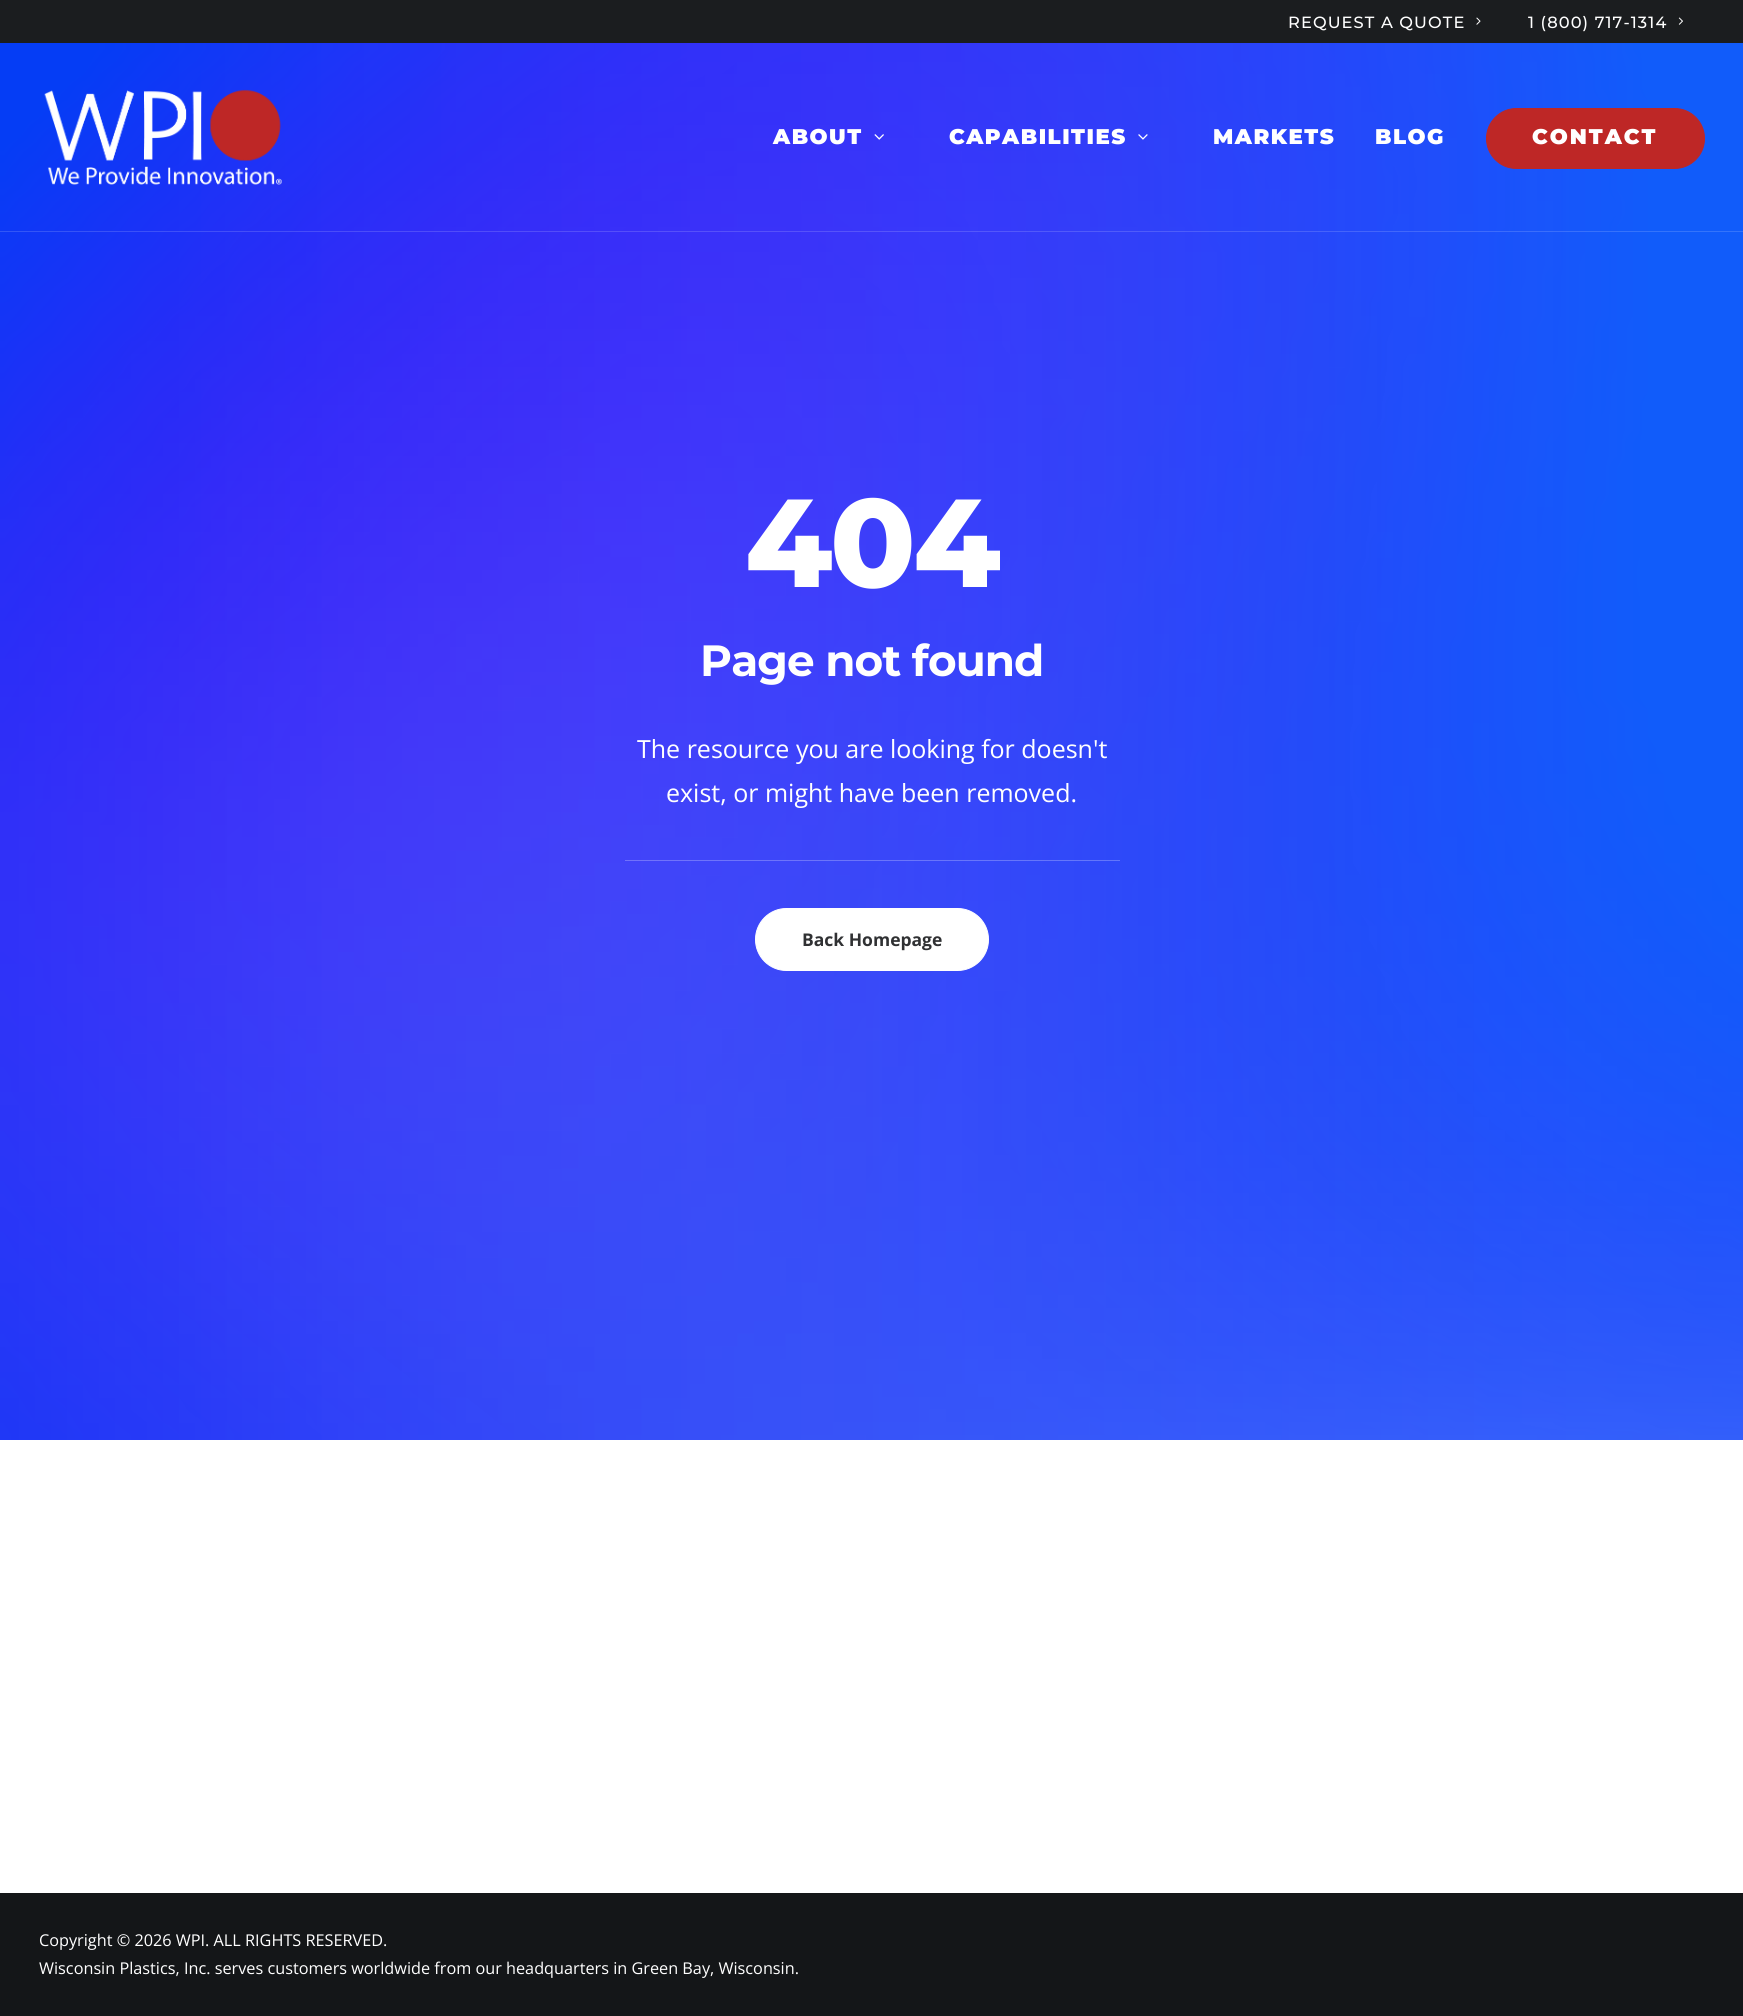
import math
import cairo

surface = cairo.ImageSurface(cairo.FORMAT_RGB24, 1743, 2016)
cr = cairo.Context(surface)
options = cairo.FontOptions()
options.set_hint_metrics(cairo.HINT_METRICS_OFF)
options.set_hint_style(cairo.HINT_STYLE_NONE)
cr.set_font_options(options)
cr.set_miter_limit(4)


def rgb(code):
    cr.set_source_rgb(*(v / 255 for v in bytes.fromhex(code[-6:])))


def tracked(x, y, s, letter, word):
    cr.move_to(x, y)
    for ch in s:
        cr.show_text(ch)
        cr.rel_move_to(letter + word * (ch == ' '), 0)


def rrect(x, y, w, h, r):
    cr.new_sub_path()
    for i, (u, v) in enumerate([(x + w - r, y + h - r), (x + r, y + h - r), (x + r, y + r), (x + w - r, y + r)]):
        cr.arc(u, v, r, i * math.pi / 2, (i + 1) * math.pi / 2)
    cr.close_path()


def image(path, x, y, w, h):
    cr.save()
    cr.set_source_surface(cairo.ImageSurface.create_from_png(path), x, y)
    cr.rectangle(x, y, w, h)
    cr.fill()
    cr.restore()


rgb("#141618")
cr.paint()
rgb("#1b1d1f")
cr.rectangle(0, 0, 1743, 43)
cr.fill()
image("img/1.png", 1476, 17, 5, 8)
image("img/2.png", 1678, 17, 5, 8)
gradient = cairo.LinearGradient(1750, 741, -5, 741)
gradient.add_color_stop_rgba(0.09, 0.067, 0.361, 0.98, 1)
gradient.add_color_stop_rgba(0.91, 0.02, 0.239, 0.961, 1)
cr.set_source(gradient)
cr.rectangle(0, 43, 1743, 1397)
cr.fill()
image("img/6.png", 0, 43, 1743, 1397)
image("img/3.png", 44, 89, 238, 96)
image("img/4.png", 874, 134, 10, 6)
image("img/5.png", 1138, 134, 10, 6)
rgb("#be2726")
rrect(1486.5, 108.5, 218, 60, 30)
cr.fill_preserve()
cr.set_line_width(1)
cr.stroke()
cr.set_source_rgba(1, 1, 1, 0.15)
cr.rectangle(0, 231, 1743, 1)
cr.fill()
cr.set_source_rgba(1, 1, 1, 0.25)
cr.rectangle(625, 860, 495, 1)
cr.fill()
rgb("#ffffff")
rrect(755.5, 908.5, 233, 62, 31)
cr.fill_preserve()
cr.stroke()
cr.rectangle(0, 1440, 1743, 453)
cr.fill()
cr.select_font_face("Montserrat Medium")
cr.set_font_size(16.25)
tracked(1288, 28, "REQUEST A QUOTE", 1.1, 0)
tracked(1528, 28, "1 (800) 717-1314", 1.1, 0)
cr.select_font_face("Montserrat Black")
cr.set_font_size(21.25)
for x, y, s in [
    (773, 144, "ABOUT"),
    (949, 144, "CAPABILITIES"),
    (1213, 144, "MARKETS"),
    (1375, 144, "BLOG"),
]:
    tracked(x, y, s, 1.5, 0)
tracked(1532, 144, "CONTACT", 2, 0)
cr.select_font_face("Montserrat ExtraBold")
cr.set_font_size(125)
tracked(745, 587, "404", -2.5, 0)
cr.select_font_face("Montserrat", cairo.FONT_SLANT_NORMAL, cairo.FONT_WEIGHT_BOLD)
cr.set_font_size(43.75)
tracked(700, 676, "Page not found", -0.9, 0)
cr.select_font_face("Open Sans")
cr.set_font_size(25)
cr.move_to(637, 758)
cr.show_text("The resource you are looking for doesn't")
cr.move_to(666, 802)
cr.show_text("exist, or might have been removed.")
cr.select_font_face("Open Sans", cairo.FONT_SLANT_NORMAL, cairo.FONT_WEIGHT_BOLD)
cr.set_font_size(17.5)
rgb("#303133")
cr.move_to(802, 946)
cr.show_text("Back Homepage")
cr.select_font_face("Open Sans")
cr.set_font_size(16.25)
rgb("#ffffff")
cr.move_to(39, 1946)
cr.show_text("Copyright © 2026 WPI. ALL RIGHTS RESERVED.")
cr.move_to(39, 1974)
cr.show_text("Wisconsin Plastics, Inc. serves customers worldwide from our headquarters in Green Bay, Wisconsin.")
surface.write_to_png("page.png")
